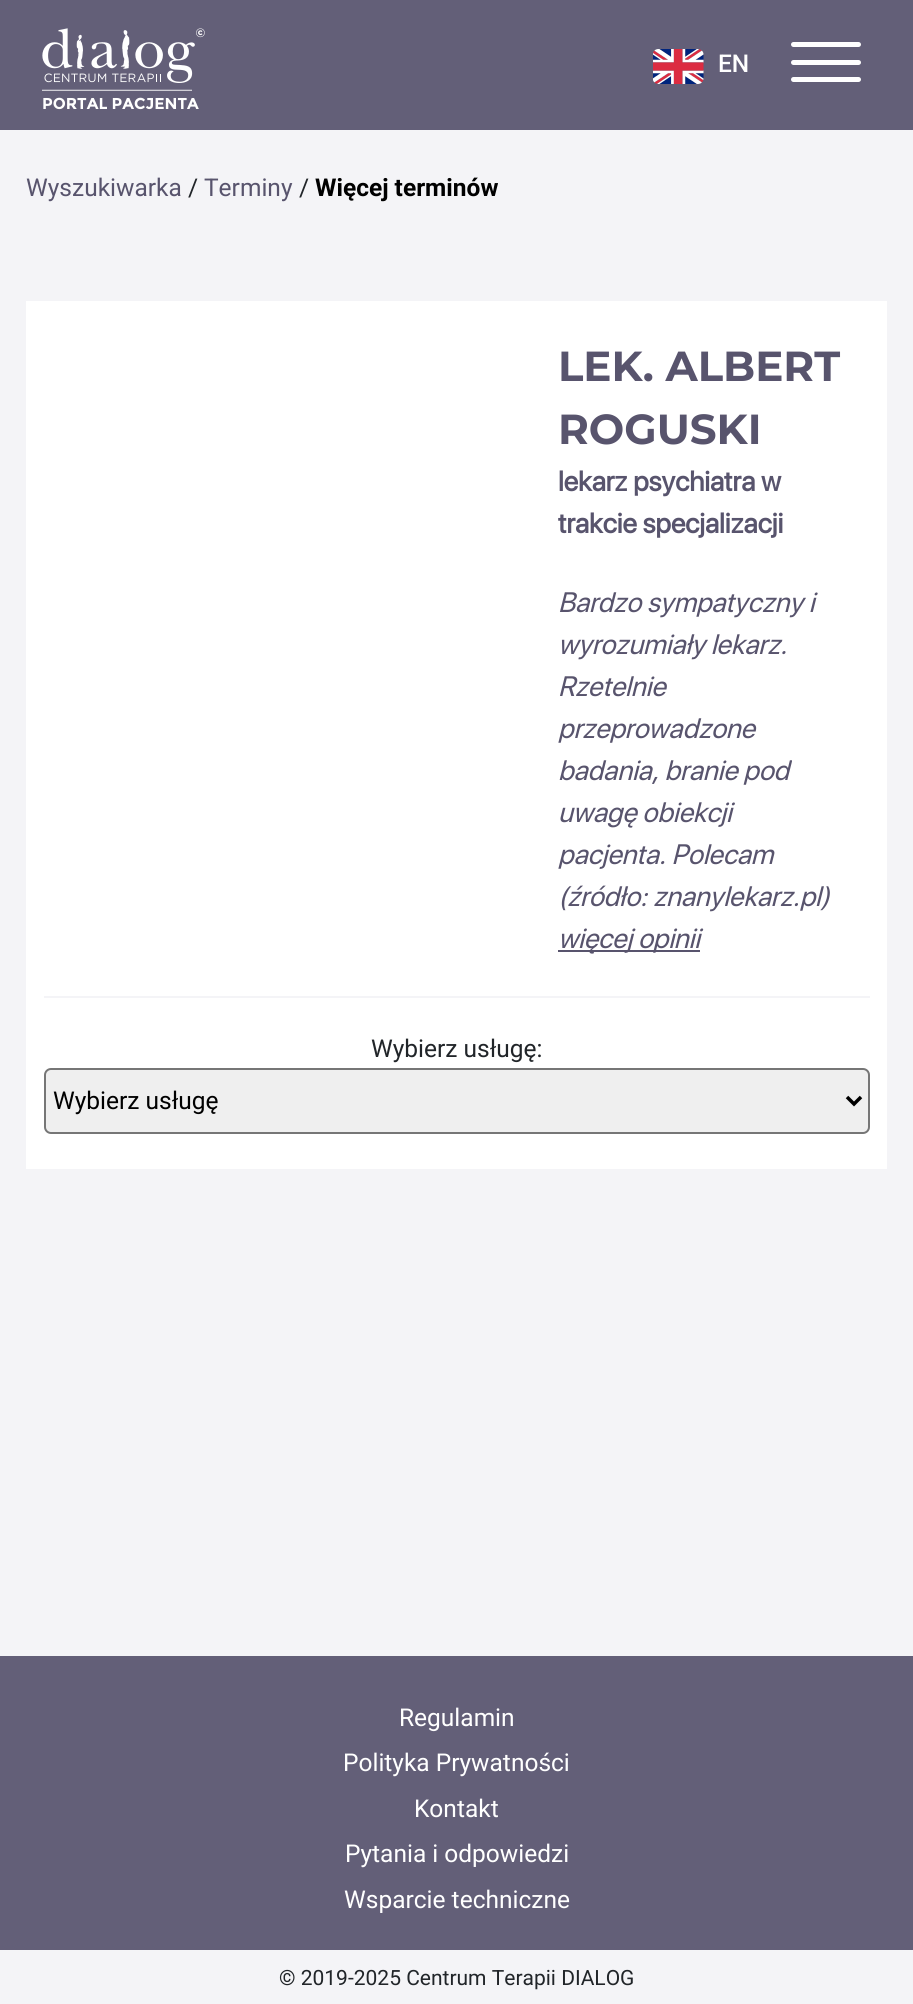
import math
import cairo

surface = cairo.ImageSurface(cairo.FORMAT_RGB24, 913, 2004)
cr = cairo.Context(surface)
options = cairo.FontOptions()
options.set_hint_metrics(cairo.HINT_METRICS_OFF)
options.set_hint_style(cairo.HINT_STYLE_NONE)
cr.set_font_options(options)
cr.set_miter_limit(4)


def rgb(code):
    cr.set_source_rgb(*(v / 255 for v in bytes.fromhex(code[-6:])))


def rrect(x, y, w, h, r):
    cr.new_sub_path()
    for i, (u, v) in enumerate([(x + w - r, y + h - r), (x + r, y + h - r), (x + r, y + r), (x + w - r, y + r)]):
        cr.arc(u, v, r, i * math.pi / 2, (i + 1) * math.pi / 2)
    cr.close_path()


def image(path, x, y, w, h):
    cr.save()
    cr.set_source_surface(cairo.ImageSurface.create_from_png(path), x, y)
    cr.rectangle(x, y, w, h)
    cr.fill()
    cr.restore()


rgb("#f4f4f7")
cr.paint()
rgb("#635f78")
cr.rectangle(0, 0, 913, 130)
cr.fill()
image("img/1.png", 653, 49, 51, 35)
rgb("#ffffff")
rrect(791, 42, 70, 5, 2.5)
cr.fill()
rrect(791, 60, 70, 5, 2.5)
cr.fill()
rrect(791, 77, 70, 5, 2.5)
cr.fill()
image("img/2.png", 42, 28, 163, 63)
for x, y, w, h, color in [
    (26, 301, 861, 868, "#ffffff"),
    (558, 950, 142, 2, "#58546d"),
    (44, 996, 826, 2, "#f4f4f7"),
]:
    rgb(color)
    cr.rectangle(x, y, w, h)
    cr.fill()
rgb("#efefef")
rrect(45, 1069, 824, 64, 6)
cr.fill_preserve()
rgb("#767676")
cr.stroke()
cr.new_path()
cr.move_to(847, 1097)
cr.line_to(854, 1104)
cr.line_to(861, 1097)
rgb("#000000")
cr.set_line_width(3.5)
cr.stroke()
rgb("#635f78")
cr.rectangle(0, 1656, 913, 294)
cr.fill()
cr.select_font_face("Roboto Medium")
cr.set_font_size(24.5)
rgb("#ffffff")
cr.move_to(718, 72)
cr.show_text("EN")
cr.select_font_face("Montserrat", cairo.FONT_SLANT_NORMAL, cairo.FONT_WEIGHT_BOLD)
cr.set_font_size(15.75)
cr.move_to(42, 109)
cr.show_text("PORTAL PACJENTA")
cr.select_font_face("Roboto")
cr.set_font_size(24.5)
rgb("#58546d")
cr.move_to(26, 196)
cr.show_text("Wyszukiwarka")
rgb("#212529")
cr.move_to(188, 196)
cr.show_text("/")
rgb("#58546d")
cr.move_to(204, 196)
cr.show_text("Terminy")
rgb("#212529")
cr.move_to(299, 196)
cr.show_text("/")
cr.select_font_face("Roboto", cairo.FONT_SLANT_NORMAL, cairo.FONT_WEIGHT_BOLD)
rgb("#000000")
cr.move_to(315, 196)
cr.show_text("Więcej terminów")
cr.select_font_face("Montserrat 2", cairo.FONT_SLANT_NORMAL, cairo.FONT_WEIGHT_BOLD)
cr.set_font_size(42)
rgb("#58546d")
cr.move_to(558, 381)
cr.show_text("LEK. ALBERT")
cr.move_to(558, 444)
cr.show_text("ROGUSKI")
cr.select_font_face("SF Pro Display", cairo.FONT_SLANT_NORMAL, cairo.FONT_WEIGHT_BOLD)
cr.set_font_size(28)
cr.move_to(558, 491)
cr.show_text("lekarz psychiatra w")
cr.move_to(558, 533)
cr.show_text("trakcie specjalizacji")
cr.select_font_face("SF Pro Display", cairo.FONT_SLANT_ITALIC)
for x, y, s in [
    (558, 612, "Bardzo sympatyczny i"),
    (558, 654, "wyrozumiały lekarz."),
    (558, 696, "Rzetelnie"),
    (558, 738, "przeprowadzone"),
    (558, 780, "badania, branie pod"),
    (558, 822, "uwagę obiekcji"),
    (558, 864, "pacjenta. Polecam"),
    (558, 906, "(źródło: znanylekarz.pl)"),
    (558, 948, "więcej opinii"),
]:
    cr.move_to(x, y)
    cr.show_text(s)
cr.select_font_face("Roboto")
cr.set_font_size(24.5)
rgb("#212529")
cr.move_to(371, 1057)
cr.show_text("Wybierz usługę:")
rgb("#000000")
cr.move_to(53, 1109)
cr.show_text("Wybierz usługę")
rgb("#ffffff")
for x, y, s in [
    (399, 1726, "Regulamin"),
    (343, 1771, "Polityka Prywatności"),
    (414, 1817, "Kontakt"),
    (345, 1862, "Pytania i odpowiedzi"),
    (344, 1908, "Wsparcie techniczne"),
]:
    cr.move_to(x, y)
    cr.show_text(s)
cr.set_font_size(21)
rgb("#212529")
cr.move_to(279, 1985)
cr.show_text("© 2019-2025 Centrum Terapii DIALOG")
surface.write_to_png("page.png")
